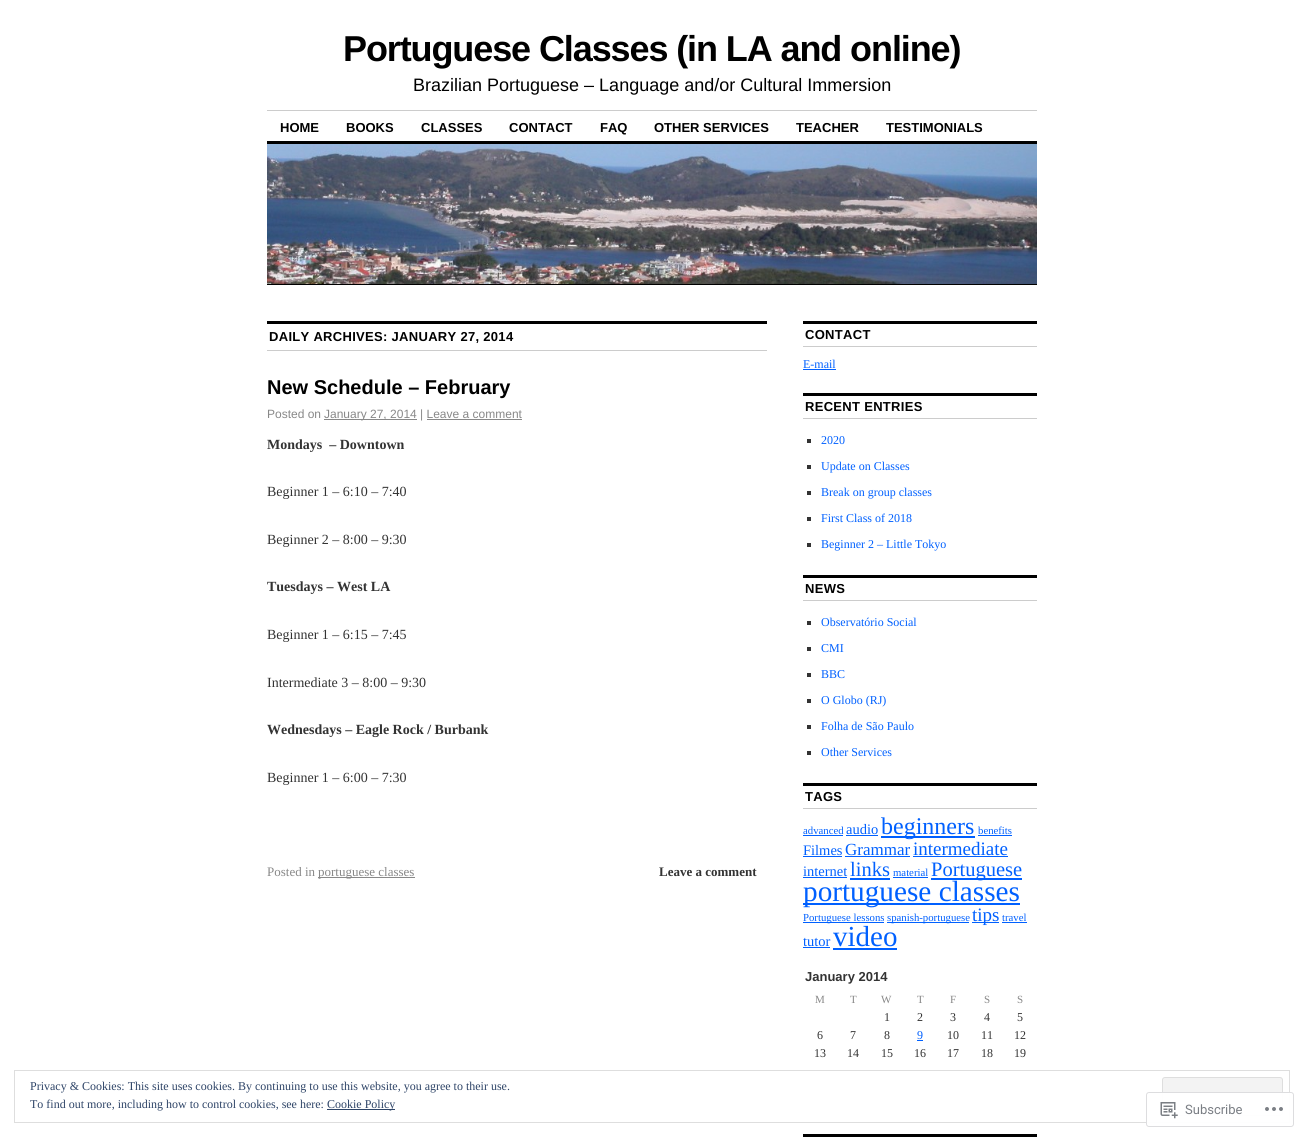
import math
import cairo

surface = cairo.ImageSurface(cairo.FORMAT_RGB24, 1304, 1137)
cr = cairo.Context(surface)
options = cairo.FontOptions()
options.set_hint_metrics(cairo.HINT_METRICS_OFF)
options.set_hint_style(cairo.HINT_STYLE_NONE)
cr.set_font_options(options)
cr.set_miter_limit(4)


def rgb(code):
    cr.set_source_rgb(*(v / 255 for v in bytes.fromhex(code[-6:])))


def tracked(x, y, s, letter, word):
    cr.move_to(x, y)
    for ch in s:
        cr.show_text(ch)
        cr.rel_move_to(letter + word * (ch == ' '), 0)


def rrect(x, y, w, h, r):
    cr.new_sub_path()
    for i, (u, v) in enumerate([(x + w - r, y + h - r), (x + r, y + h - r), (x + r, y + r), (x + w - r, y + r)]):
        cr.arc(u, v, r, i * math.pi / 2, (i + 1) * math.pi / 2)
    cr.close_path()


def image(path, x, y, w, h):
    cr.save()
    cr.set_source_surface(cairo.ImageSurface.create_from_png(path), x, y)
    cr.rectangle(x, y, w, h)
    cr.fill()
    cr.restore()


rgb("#ffffff")
cr.paint()
rgb("#cccccc")
cr.rectangle(267, 110, 770, 1)
cr.fill()
rgb("#000000")
cr.rectangle(267, 141, 770, 3)
cr.fill()
image("img/1.png", 267, 144, 770, 140)
for x, y, w, h, color in [
    (267, 284, 770, 1, "#000000"),
    (267, 321, 500, 3, "#000000"),
    (267, 350, 500, 1, "#cccccc"),
    (324, 419, 93, 1, "#888888"),
    (427, 419, 95, 1, "#888888"),
    (318, 877, 97, 1, "#888888"),
    (803, 321, 234, 3, "#000000"),
    (803, 346, 234, 1, "#cccccc"),
    (803, 369, 33, 1, "#0060ff"),
    (803, 393, 234, 3, "#000000"),
    (803, 418, 234, 1, "#cccccc"),
    (807, 439, 4, 4, "#333333"),
    (807, 465, 4, 4, "#333333"),
    (807, 491, 4, 4, "#333333"),
    (807, 517, 4, 4, "#333333"),
    (807, 543, 4, 4, "#333333"),
    (803, 575, 234, 3, "#000000"),
    (803, 600, 234, 1, "#cccccc"),
    (807, 621, 4, 4, "#333333"),
    (807, 647, 4, 4, "#333333"),
    (807, 673, 4, 4, "#333333"),
    (807, 699, 4, 4, "#333333"),
    (807, 725, 4, 4, "#333333"),
    (807, 751, 4, 4, "#333333"),
    (803, 783, 234, 3, "#000000"),
    (803, 808, 234, 1, "#cccccc"),
    (803, 835, 40, 1, "#0060ff"),
    (846, 835, 32, 1, "#0060ff"),
    (881, 836, 94, 2, "#0060ff"),
    (978, 835, 34, 1, "#0060ff"),
    (803, 856, 39, 1, "#0060ff"),
    (845, 856, 65, 1, "#0060ff"),
    (913, 856, 95, 1, "#0060ff"),
    (803, 877, 44, 1, "#0060ff"),
    (850, 878, 40, 2, "#0060ff"),
    (893, 877, 35, 1, "#0060ff"),
    (931, 878, 91, 2, "#0060ff"),
    (803, 903, 217, 2, "#0060ff"),
    (803, 922, 81, 1, "#0060ff"),
    (887, 922, 82, 1, "#0060ff"),
    (972, 922, 27, 1, "#0060ff"),
    (1002, 922, 25, 1, "#0060ff"),
    (803, 947, 27, 1, "#0060ff"),
    (833, 948, 64, 2, "#0060ff"),
    (917, 1040, 6, 1, "#0060ff"),
    (803, 1134, 234, 3, "#000000"),
]:
    rgb(color)
    cr.rectangle(x, y, w, h)
    cr.fill()
cr.rectangle(14.5, 1070.5, 1275, 52)
rgb("#dedede")
cr.set_line_width(1)
cr.stroke()
rgb("#f3f3f3")
rrect(1162.5, 1077.5, 120, 38, 2.5)
cr.fill_preserve()
rgb("#dedede")
cr.stroke()
rgb("#2e4467")
cr.rectangle(327, 1109, 68, 1)
cr.fill()
cr.set_source_rgba(1, 1, 1, 0.98)
rrect(1146, 1092, 148, 35, 3)
cr.fill()
rrect(1146.5, 1092.5, 147, 34, 2.5)
cr.set_source_rgba(0.863, 0.863, 0.871, 0.98)
cr.stroke()
image("img/2.png", 1160, 1102, 18, 17)
image("img/3.png", 1265, 1107, 18, 4)
cr.select_font_face("Liberation Sans", cairo.FONT_SLANT_NORMAL, cairo.FONT_WEIGHT_BOLD)
cr.set_font_size(36)
rgb("#000000")
tracked(343, 61, "Portuguese Classes (in LA and online)", -1.1, 0)
cr.select_font_face("Liberation Sans")
cr.set_font_size(18)
cr.move_to(413, 91)
cr.show_text("Brazilian Portuguese – Language and/or Cultural Immersion")
cr.select_font_face("Liberation Sans", cairo.FONT_SLANT_NORMAL, cairo.FONT_WEIGHT_BOLD)
cr.set_font_size(13)
for x, y, s in [
    (280, 132, "HOME"),
    (346, 132, "BOOKS"),
    (421, 132, "CLASSES"),
    (509, 132, "CONTACT"),
    (600, 132, "FAQ"),
    (654, 132, "OTHER SERVICES"),
    (796, 132, "TEACHER"),
    (886, 132, "TESTIMONIALS"),
]:
    cr.move_to(x, y)
    cr.show_text(s)
tracked(269, 341, "DAILY ARCHIVES: JANUARY 27, 2014", 0.3, 0)
cr.set_font_size(20)
cr.move_to(267, 394)
cr.show_text("New Schedule – February")
cr.select_font_face("Liberation Sans")
cr.set_font_size(12)
rgb("#888888")
cr.move_to(267, 418)
cr.show_text("Posted on")
cr.move_to(324, 418)
cr.show_text("January 27, 2014 | Leave a comment")
cr.select_font_face("Liberation Serif", cairo.FONT_SLANT_NORMAL, cairo.FONT_WEIGHT_BOLD)
cr.set_font_size(14)
rgb("#333333")
cr.move_to(267, 449)
cr.show_text("Mondays  – Downtown")
cr.select_font_face("Liberation Serif")
cr.move_to(267, 496)
cr.show_text("Beginner 1 – 6:10 – 7:40")
cr.move_to(267, 544)
cr.show_text("Beginner 2 – 8:00 – 9:30")
cr.select_font_face("Liberation Serif", cairo.FONT_SLANT_NORMAL, cairo.FONT_WEIGHT_BOLD)
cr.move_to(267, 591)
cr.show_text("Tuesdays – West LA")
cr.select_font_face("Liberation Serif")
cr.move_to(267, 639)
cr.show_text("Beginner 1 – 6:15 – 7:45")
cr.move_to(267, 687)
cr.show_text("Intermediate 3 – 8:00 – 9:30")
cr.select_font_face("Liberation Serif", cairo.FONT_SLANT_NORMAL, cairo.FONT_WEIGHT_BOLD)
cr.move_to(267, 734)
cr.show_text("Wednesdays – Eagle Rock / Burbank")
cr.select_font_face("Liberation Serif")
cr.move_to(267, 782)
cr.show_text("Beginner 1 – 6:00 – 7:30")
cr.set_font_size(13)
rgb("#888888")
cr.move_to(267, 876)
cr.show_text("Posted in")
cr.move_to(318, 876)
cr.show_text("portuguese classes")
cr.select_font_face("Liberation Serif", cairo.FONT_SLANT_NORMAL, cairo.FONT_WEIGHT_BOLD)
rgb("#333333")
cr.move_to(659, 876)
cr.show_text("Leave a comment")
cr.select_font_face("Liberation Sans", cairo.FONT_SLANT_NORMAL, cairo.FONT_WEIGHT_BOLD)
rgb("#000000")
tracked(805, 339, "CONTACT", 0.3, 0)
cr.select_font_face("Liberation Serif")
cr.set_font_size(12)
rgb("#0060ff")
cr.move_to(803, 368)
cr.show_text("E-mail")
cr.select_font_face("Liberation Sans", cairo.FONT_SLANT_NORMAL, cairo.FONT_WEIGHT_BOLD)
cr.set_font_size(13)
rgb("#000000")
tracked(805, 411, "RECENT ENTRIES", 0.3, 0)
cr.select_font_face("Liberation Serif")
cr.set_font_size(12)
rgb("#0060ff")
for x, y, s in [
    (821, 444, "2020"),
    (821, 470, "Update on Classes"),
    (821, 496, "Break on group classes"),
    (821, 522, "First Class of 2018"),
    (821, 548, "Beginner 2 – Little Tokyo"),
]:
    cr.move_to(x, y)
    cr.show_text(s)
cr.select_font_face("Liberation Sans", cairo.FONT_SLANT_NORMAL, cairo.FONT_WEIGHT_BOLD)
cr.set_font_size(13)
rgb("#000000")
tracked(805, 593, "NEWS", 0.3, 0)
cr.select_font_face("Liberation Serif")
cr.set_font_size(12)
rgb("#0060ff")
for x, y, s in [
    (821, 626, "Observatório Social"),
    (821, 652, "CMI"),
    (821, 678, "BBC"),
    (821, 704, "O Globo (RJ)"),
    (821, 730, "Folha de São Paulo"),
    (821, 756, "Other Services"),
]:
    cr.move_to(x, y)
    cr.show_text(s)
cr.select_font_face("Liberation Sans", cairo.FONT_SLANT_NORMAL, cairo.FONT_WEIGHT_BOLD)
cr.set_font_size(13)
rgb("#000000")
tracked(805, 801, "TAGS", 0.3, 0)
cr.select_font_face("Liberation Serif")
cr.set_font_size(10.75)
rgb("#0060ff")
cr.move_to(803, 834)
cr.show_text("advanced")
cr.set_font_size(14.5)
cr.move_to(846, 834)
cr.show_text("audio")
cr.set_font_size(24)
cr.move_to(881, 834)
cr.show_text("beginners")
cr.set_font_size(10.75)
cr.move_to(978, 834)
cr.show_text("benefits")
cr.set_font_size(14.5)
cr.move_to(803, 855)
cr.show_text("Filmes")
cr.set_font_size(17)
cr.move_to(845, 855)
cr.show_text("Grammar")
cr.set_font_size(19)
cr.move_to(913, 855)
cr.show_text("intermediate")
cr.set_font_size(14.5)
cr.move_to(803, 876)
cr.show_text("internet")
cr.set_font_size(20.5)
cr.move_to(850, 876)
cr.show_text("links")
cr.set_font_size(10.75)
cr.move_to(893, 876)
cr.show_text("material")
cr.set_font_size(20.5)
cr.move_to(931, 876)
cr.show_text("Portuguese")
cr.set_font_size(29.25)
cr.move_to(803, 901)
cr.show_text("portuguese classes")
cr.set_font_size(10.75)
cr.move_to(803, 921)
cr.show_text("Portuguese lessons")
cr.move_to(887, 921)
cr.show_text("spanish-portuguese")
cr.set_font_size(19)
cr.move_to(972, 921)
cr.show_text("tips")
cr.set_font_size(10.75)
cr.move_to(1002, 921)
cr.show_text("travel")
cr.set_font_size(14.5)
cr.move_to(803, 946)
cr.show_text("tutor")
cr.set_font_size(29)
cr.move_to(833, 946)
cr.show_text("video")
cr.select_font_face("Liberation Sans", cairo.FONT_SLANT_NORMAL, cairo.FONT_WEIGHT_BOLD)
cr.set_font_size(13)
rgb("#333333")
cr.move_to(805, 981)
cr.show_text("January 2014")
cr.select_font_face("Liberation Serif")
cr.set_font_size(11)
rgb("#888888")
for x, y, s in [
    (815, 1003, "M"),
    (850, 1003, "T"),
    (881, 1003, "W"),
    (917, 1003, "T"),
    (950, 1003, "F"),
    (984, 1003, "S"),
    (1017, 1003, "S"),
]:
    cr.move_to(x, y)
    cr.show_text(s)
cr.set_font_size(12)
rgb("#333333")
for x, y, s in [
    (884, 1021, "1"),
    (917, 1021, "2"),
    (950, 1021, "3"),
    (984, 1021, "4"),
    (1017, 1021, "5"),
    (817, 1039, "6"),
    (850, 1039, "7"),
    (884, 1039, "8"),
]:
    cr.move_to(x, y)
    cr.show_text(s)
rgb("#0060ff")
cr.move_to(917, 1039)
cr.show_text("9")
rgb("#333333")
for x, y, s in [
    (947, 1039, "10"),
    (981, 1039, "11"),
    (1014, 1039, "12"),
    (814, 1057, "13"),
    (847, 1057, "14"),
    (881, 1057, "15"),
    (914, 1057, "16"),
    (947, 1057, "17"),
    (981, 1057, "18"),
    (1014, 1057, "19"),
]:
    cr.move_to(x, y)
    cr.show_text(s)
rgb("#2e4467")
for x, y, s in [
    (30, 1090, "Privacy & Cookies: This site uses cookies. By continuing to use this website, you agree to their use."),
    (30, 1108, "To find out more, including how to control cookies, see here:"),
    (327, 1108, "Cookie Policy"),
]:
    cr.move_to(x, y)
    cr.show_text(s)
cr.select_font_face("Roboto")
cr.set_font_size(13)
rgb("#7a7e84")
cr.move_to(1185, 1114)
cr.show_text("Subscribe")
surface.write_to_png("page.png")
